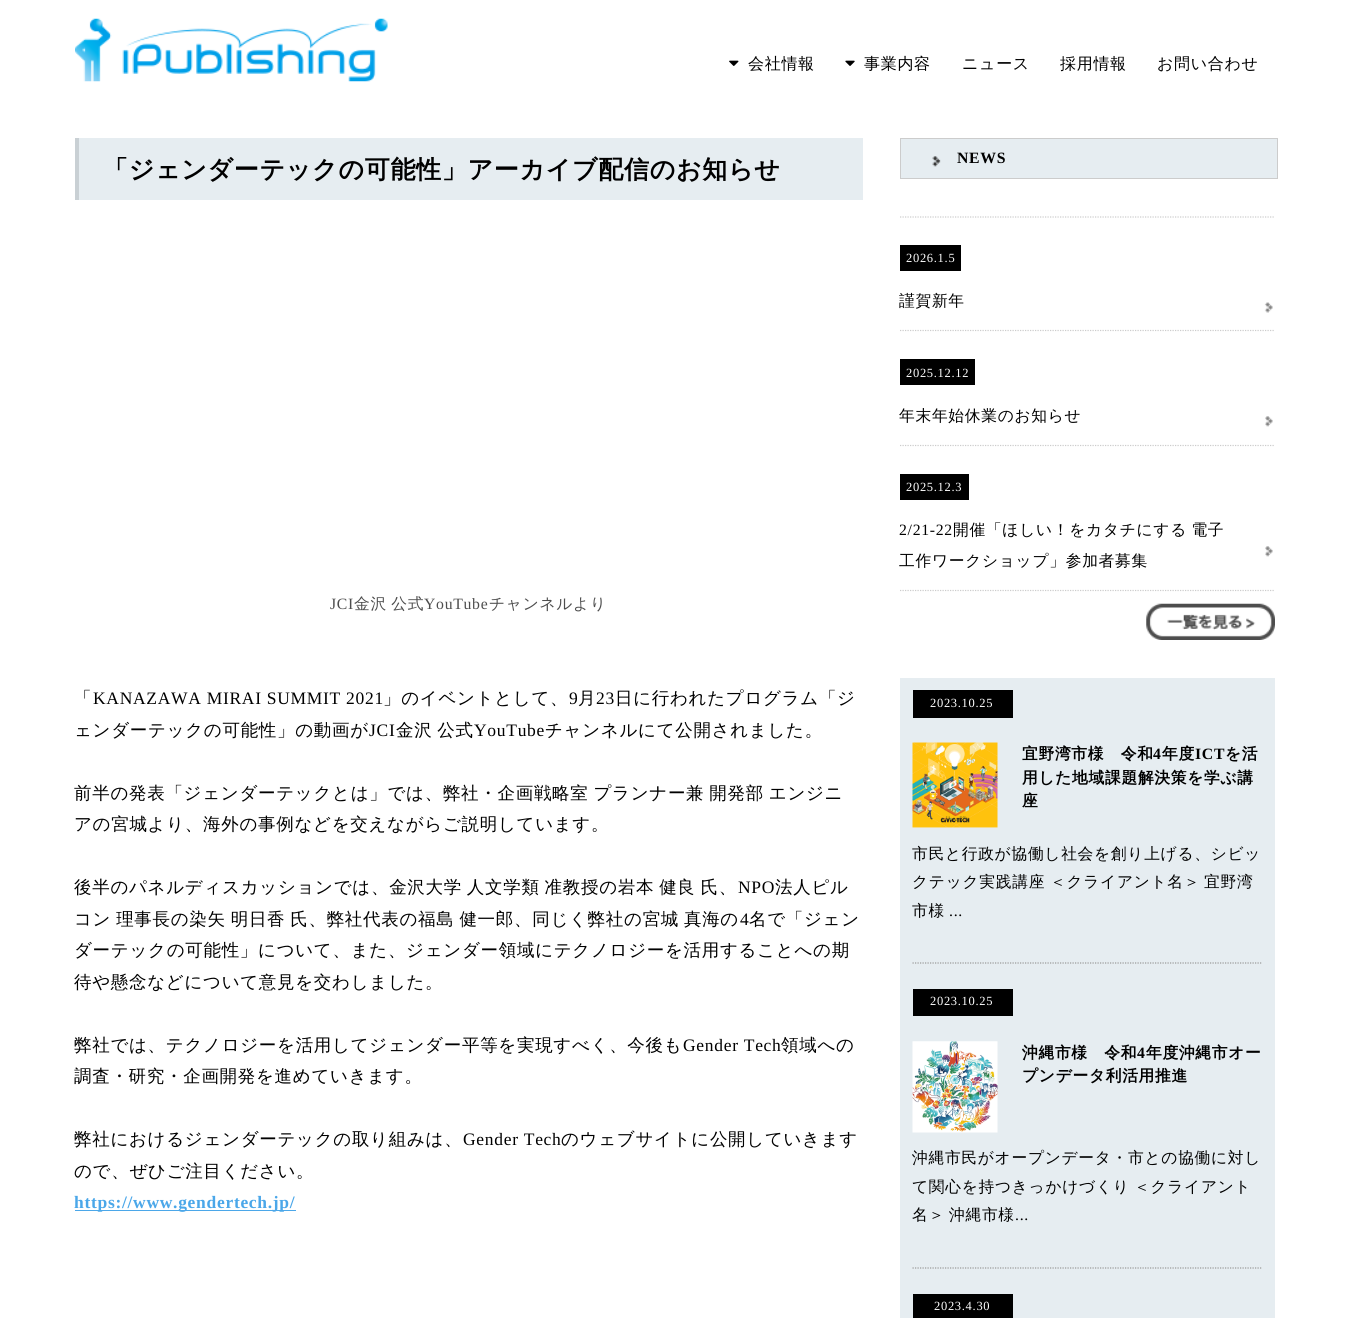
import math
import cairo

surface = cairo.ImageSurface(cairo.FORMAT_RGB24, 1348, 1318)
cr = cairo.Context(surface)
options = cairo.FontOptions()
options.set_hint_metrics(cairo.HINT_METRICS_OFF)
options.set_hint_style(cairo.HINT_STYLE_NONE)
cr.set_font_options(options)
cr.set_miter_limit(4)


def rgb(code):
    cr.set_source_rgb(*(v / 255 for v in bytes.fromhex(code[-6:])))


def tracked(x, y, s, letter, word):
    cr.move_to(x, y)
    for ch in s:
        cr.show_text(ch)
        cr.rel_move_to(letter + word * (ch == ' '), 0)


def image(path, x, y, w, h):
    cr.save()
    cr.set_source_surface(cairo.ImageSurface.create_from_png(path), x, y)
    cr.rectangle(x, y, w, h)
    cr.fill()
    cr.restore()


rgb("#ffffff")
cr.paint()
image("img/1.png", 75, 18, 313, 64)
image("img/2.png", 729, 60, 10, 6)
image("img/3.png", 845, 60, 10, 6)
for x, y, w, h, color in [
    (79, 138, 784, 62, "#e6edf1"),
    (75, 138, 4, 62, "#c9d0d4"),
    (75, 1210, 221, 1, "#4ba7e9"),
    (901, 139, 376, 39, "#e6edf1"),
]:
    rgb(color)
    cr.rectangle(x, y, w, h)
    cr.fill()
image("img/4.png", 932, 156, 9, 11)
cr.rectangle(900.5, 138.5, 377, 40)
rgb("#cccccc")
cr.set_line_width(1)
cr.stroke()
cr.new_path()
cr.move_to(900, 590.5)
cr.line_to(1275, 590.5)
cr.set_line_width(1.2)
cr.set_dash([1.25, 1.25])
cr.stroke()
cr.new_path()
cr.move_to(900, 217)
cr.line_to(1275, 217)
cr.stroke()
rgb("#000000")
cr.rectangle(900, 245, 61, 26)
cr.fill()
image("img/5.png", 1264, 302, 9, 11)
cr.new_path()
cr.move_to(900, 330.5)
cr.line_to(1275, 330.5)
rgb("#cccccc")
cr.stroke()
rgb("#000000")
cr.rectangle(900, 359, 75, 26)
cr.fill()
image("img/6.png", 1265, 416, 8, 11)
cr.new_path()
cr.move_to(900, 445.5)
cr.line_to(1275, 445.5)
rgb("#cccccc")
cr.stroke()
rgb("#000000")
cr.rectangle(900, 474, 69, 26)
cr.fill()
image("img/6.png", 1265, 546, 8, 11)
image("img/7.png", 1146, 603, 129, 37)
rgb("#e6edf1")
cr.rectangle(900, 678, 375, 640)
cr.fill()
cr.new_path()
cr.move_to(912.5, 963)
cr.line_to(1262.5, 963)
rgb("#999999")
cr.stroke()
rgb("#000000")
cr.rectangle(913, 690, 100, 28)
cr.fill()
image("img/8.png", 912, 742, 86, 86)
cr.new_path()
cr.move_to(912.5, 1268)
cr.line_to(1262.5, 1268)
rgb("#999999")
cr.stroke()
rgb("#000000")
cr.rectangle(913, 989, 100, 27)
cr.fill()
image("img/9.png", 912, 1041, 86, 92)
cr.rectangle(913, 1294, 100, 24)
cr.fill()
cr.select_font_face("WenQuanYi Zen Hei Medium")
cr.set_font_size(16)
for x, y, s in [
    (748, 69, "会社情報"),
    (864, 69, "事業内容"),
    (962, 69, "ニュース"),
    (1060, 69, "採用情報"),
    (1157, 69, "お問い合わせ"),
]:
    tracked(x, y, s, 0.7, 0)
cr.select_font_face("WenQuanYi Zen Hei", cairo.FONT_SLANT_NORMAL, cairo.FONT_WEIGHT_BOLD)
cr.set_font_size(25)
tracked(103, 178, "「ジェンダーテックの可能性」アーカイブ配信のお知らせ", 0.7, 0)
cr.select_font_face("Liberation Serif")
cr.set_font_size(15.75)
rgb("#4d4d4d")
tracked(330, 609, "JCI", 0.7, 0)
cr.select_font_face("WenQuanYi Zen Hei Medium")
tracked(354, 609, "金沢 公式", 0.7, -1)
cr.select_font_face("Liberation Serif")
tracked(424, 609, "YouTube", 0.7, 0)
cr.select_font_face("WenQuanYi Zen Hei Medium")
tracked(489, 609, "チャンネルより", 0.7, 0)
cr.set_font_size(17.5)
rgb("#000000")
tracked(74, 704, "「", 0.7, 0)
cr.select_font_face("Liberation Serif")
tracked(93, 704, "KANAZAWA MIRAI SUMMIT 2021", 0.7, 0)
cr.select_font_face("WenQuanYi Zen Hei Medium")
tracked(383, 704, "」のイベントとして、", 0.7, 0)
cr.select_font_face("Liberation Serif")
tracked(569, 704, "9", 0.7, 0)
cr.select_font_face("WenQuanYi Zen Hei Medium")
tracked(578, 704, "月", 0.7, 0)
cr.select_font_face("Liberation Serif")
tracked(596, 704, "23", 0.7, 0)
cr.select_font_face("WenQuanYi Zen Hei Medium")
tracked(615, 704, "日に行われたプログラム「ジ", 0.7, 0)
tracked(74, 736, "ェンダーテックの可能性」の動画が", 0.7, 0)
cr.select_font_face("Liberation Serif")
tracked(369, 736, "JCI", 0.7, 0)
cr.select_font_face("WenQuanYi Zen Hei Medium")
tracked(396, 736, "金沢 公式", 0.7, -1)
cr.select_font_face("Liberation Serif")
tracked(474, 736, "YouTube", 0.7, 0)
cr.select_font_face("WenQuanYi Zen Hei Medium")
tracked(545, 736, "チャンネルにて公開されました。", 0.7, 0)
tracked(74, 799, "前半の発表「ジェンダーテックとは」では、弊社・企画戦略室 プランナー兼 開発部 エンジニ", 0.7, -1)
tracked(74, 830, "アの宮城より、海外の事例などを交えながらご説明しています。", 0.7, 0)
tracked(74, 893, "後半のパネルディスカッションでは、金沢大学 人文学類 准教授の岩本 健良 氏、", 0.7, -1)
cr.select_font_face("Liberation Serif")
tracked(738, 893, "NPO", 0.7, 0)
cr.select_font_face("WenQuanYi Zen Hei Medium")
tracked(775, 893, "法人ピル", 0.7, 0)
tracked(74, 925, "コン 理事長の染矢 明日香 氏、弊社代表の福島 健一郎、同じく弊社の宮城 真海の", 0.7, -1)
cr.select_font_face("Liberation Serif")
tracked(740, 925, "4", 0.7, 0)
cr.select_font_face("WenQuanYi Zen Hei Medium")
for x, y, s in [
    (749, 925, "名で「ジェン"),
    (74, 956, "ダーテックの可能性」について、また、ジェンダー領域にテクノロジーを活用することへの期"),
    (74, 988, "待や懸念などについて意見を交わしました。"),
    (74, 1051, "弊社では、テクノロジーを活用してジェンダー平等を実現すべく、今後も"),
]:
    tracked(x, y, s, 0.7, 0)
cr.select_font_face("Liberation Serif")
tracked(683, 1051, "Gender Tech", 0.7, 0)
cr.select_font_face("WenQuanYi Zen Hei Medium")
for x, y, s in [
    (781, 1051, "領域への"),
    (74, 1082, "調査・研究・企画開発を進めていきます。"),
    (74, 1145, "弊社におけるジェンダーテックの取り組みは、"),
]:
    tracked(x, y, s, 0.7, 0)
cr.select_font_face("Liberation Serif")
tracked(463, 1145, "Gender Tech", 0.7, 0)
cr.select_font_face("WenQuanYi Zen Hei Medium")
tracked(561, 1145, "のウェブサイトに公開していきます", 0.7, 0)
tracked(74, 1177, "ので、ぜひご注目ください。", 0.7, 0)
cr.select_font_face("Liberation Serif", cairo.FONT_SLANT_NORMAL, cairo.FONT_WEIGHT_BOLD)
rgb("#4ba7e9")
tracked(74, 1208, "https://www.gendertech.jp/", 0.7, 0)
cr.set_font_size(15.75)
rgb("#000000")
tracked(957, 163, "NEWS", 0.7, 0)
cr.select_font_face("Liberation Serif")
cr.set_font_size(12.5)
rgb("#ffffff")
tracked(906, 262, "2026.1.5", 0.7, 0)
cr.select_font_face("WenQuanYi Zen Hei Medium")
cr.set_font_size(15.75)
rgb("#000000")
tracked(899, 306, "謹賀新年", 0.7, 0)
cr.select_font_face("Liberation Serif")
cr.set_font_size(12.5)
rgb("#ffffff")
tracked(906, 377, "2025.12.12", 0.7, 0)
cr.select_font_face("WenQuanYi Zen Hei Medium")
cr.set_font_size(15.75)
rgb("#000000")
tracked(899, 421, "年末年始休業のお知らせ", 0.7, 0)
cr.select_font_face("Liberation Serif")
cr.set_font_size(12.5)
rgb("#ffffff")
tracked(906, 491, "2025.12.3", 0.7, 0)
cr.set_font_size(15.75)
rgb("#000000")
tracked(899, 535, "2/21-22", 0.7, 0)
cr.select_font_face("WenQuanYi Zen Hei Medium")
tracked(953, 535, "開催「ほしい！をカタチにする 電子", 0.7, -1)
tracked(899, 566, "工作ワークショップ」参加者募集", 0.7, 0)
cr.select_font_face("Liberation Serif")
cr.set_font_size(12.5)
rgb("#ffffff")
tracked(930, 707, "2023.10.25", 0.7, 0)
cr.select_font_face("WenQuanYi Zen Hei", cairo.FONT_SLANT_NORMAL, cairo.FONT_WEIGHT_BOLD)
cr.set_font_size(15.75)
rgb("#000000")
tracked(1022, 759, "宜野湾市様　令和", 0.7, 0)
cr.select_font_face("Liberation Serif", cairo.FONT_SLANT_NORMAL, cairo.FONT_WEIGHT_BOLD)
tracked(1153, 759, "4", 0.7, 0)
cr.select_font_face("WenQuanYi Zen Hei", cairo.FONT_SLANT_NORMAL, cairo.FONT_WEIGHT_BOLD)
tracked(1162, 759, "年度", 0.7, 0)
cr.select_font_face("Liberation Serif", cairo.FONT_SLANT_NORMAL, cairo.FONT_WEIGHT_BOLD)
tracked(1195, 759, "ICT", 0.7, 0)
cr.select_font_face("WenQuanYi Zen Hei", cairo.FONT_SLANT_NORMAL, cairo.FONT_WEIGHT_BOLD)
for x, y, s in [
    (1225, 759, "を活"),
    (1022, 783, "用した地域課題解決策を学ぶ講"),
    (1022, 806, "座"),
]:
    tracked(x, y, s, 0.7, 0)
cr.select_font_face("WenQuanYi Zen Hei Medium")
for x, y, s in [
    (912, 859, "市民と行政が協働し社会を創り上げる、シビッ"),
    (912, 887, "クテック実践講座"),
    (1050, 887, "＜クライアント名＞"),
    (1204, 887, "宜野湾"),
    (912, 916, "市様"),
]:
    tracked(x, y, s, 0.7, 0)
cr.select_font_face("Liberation Serif")
tracked(949, 916, "...", 0.7, 0)
cr.set_font_size(12.5)
rgb("#ffffff")
tracked(930, 1005, "2023.10.25", 0.7, 0)
cr.select_font_face("WenQuanYi Zen Hei", cairo.FONT_SLANT_NORMAL, cairo.FONT_WEIGHT_BOLD)
cr.set_font_size(15.75)
rgb("#000000")
tracked(1022, 1058, "沖縄市様　令和", 0.7, 0)
cr.select_font_face("Liberation Serif", cairo.FONT_SLANT_NORMAL, cairo.FONT_WEIGHT_BOLD)
tracked(1137, 1058, "4", 0.7, 0)
cr.select_font_face("WenQuanYi Zen Hei", cairo.FONT_SLANT_NORMAL, cairo.FONT_WEIGHT_BOLD)
tracked(1146, 1058, "年度沖縄市オー", 0.7, 0)
tracked(1022, 1081, "プンデータ利活用推進", 0.7, 0)
cr.select_font_face("WenQuanYi Zen Hei Medium")
for x, y, s in [
    (912, 1163, "沖縄市民がオープンデータ・市との協働に対し"),
    (912, 1192, "て関心を持つきっかけづくり"),
    (1134, 1192, "＜クライアント"),
    (912, 1220, "名＞"),
    (949, 1220, "沖縄市様"),
]:
    tracked(x, y, s, 0.7, 0)
cr.select_font_face("Liberation Serif")
tracked(1015, 1220, "...", 0.7, 0)
cr.set_font_size(12.5)
rgb("#ffffff")
tracked(934, 1310, "2023.4.30", 0.7, 0)
surface.write_to_png("page.png")
